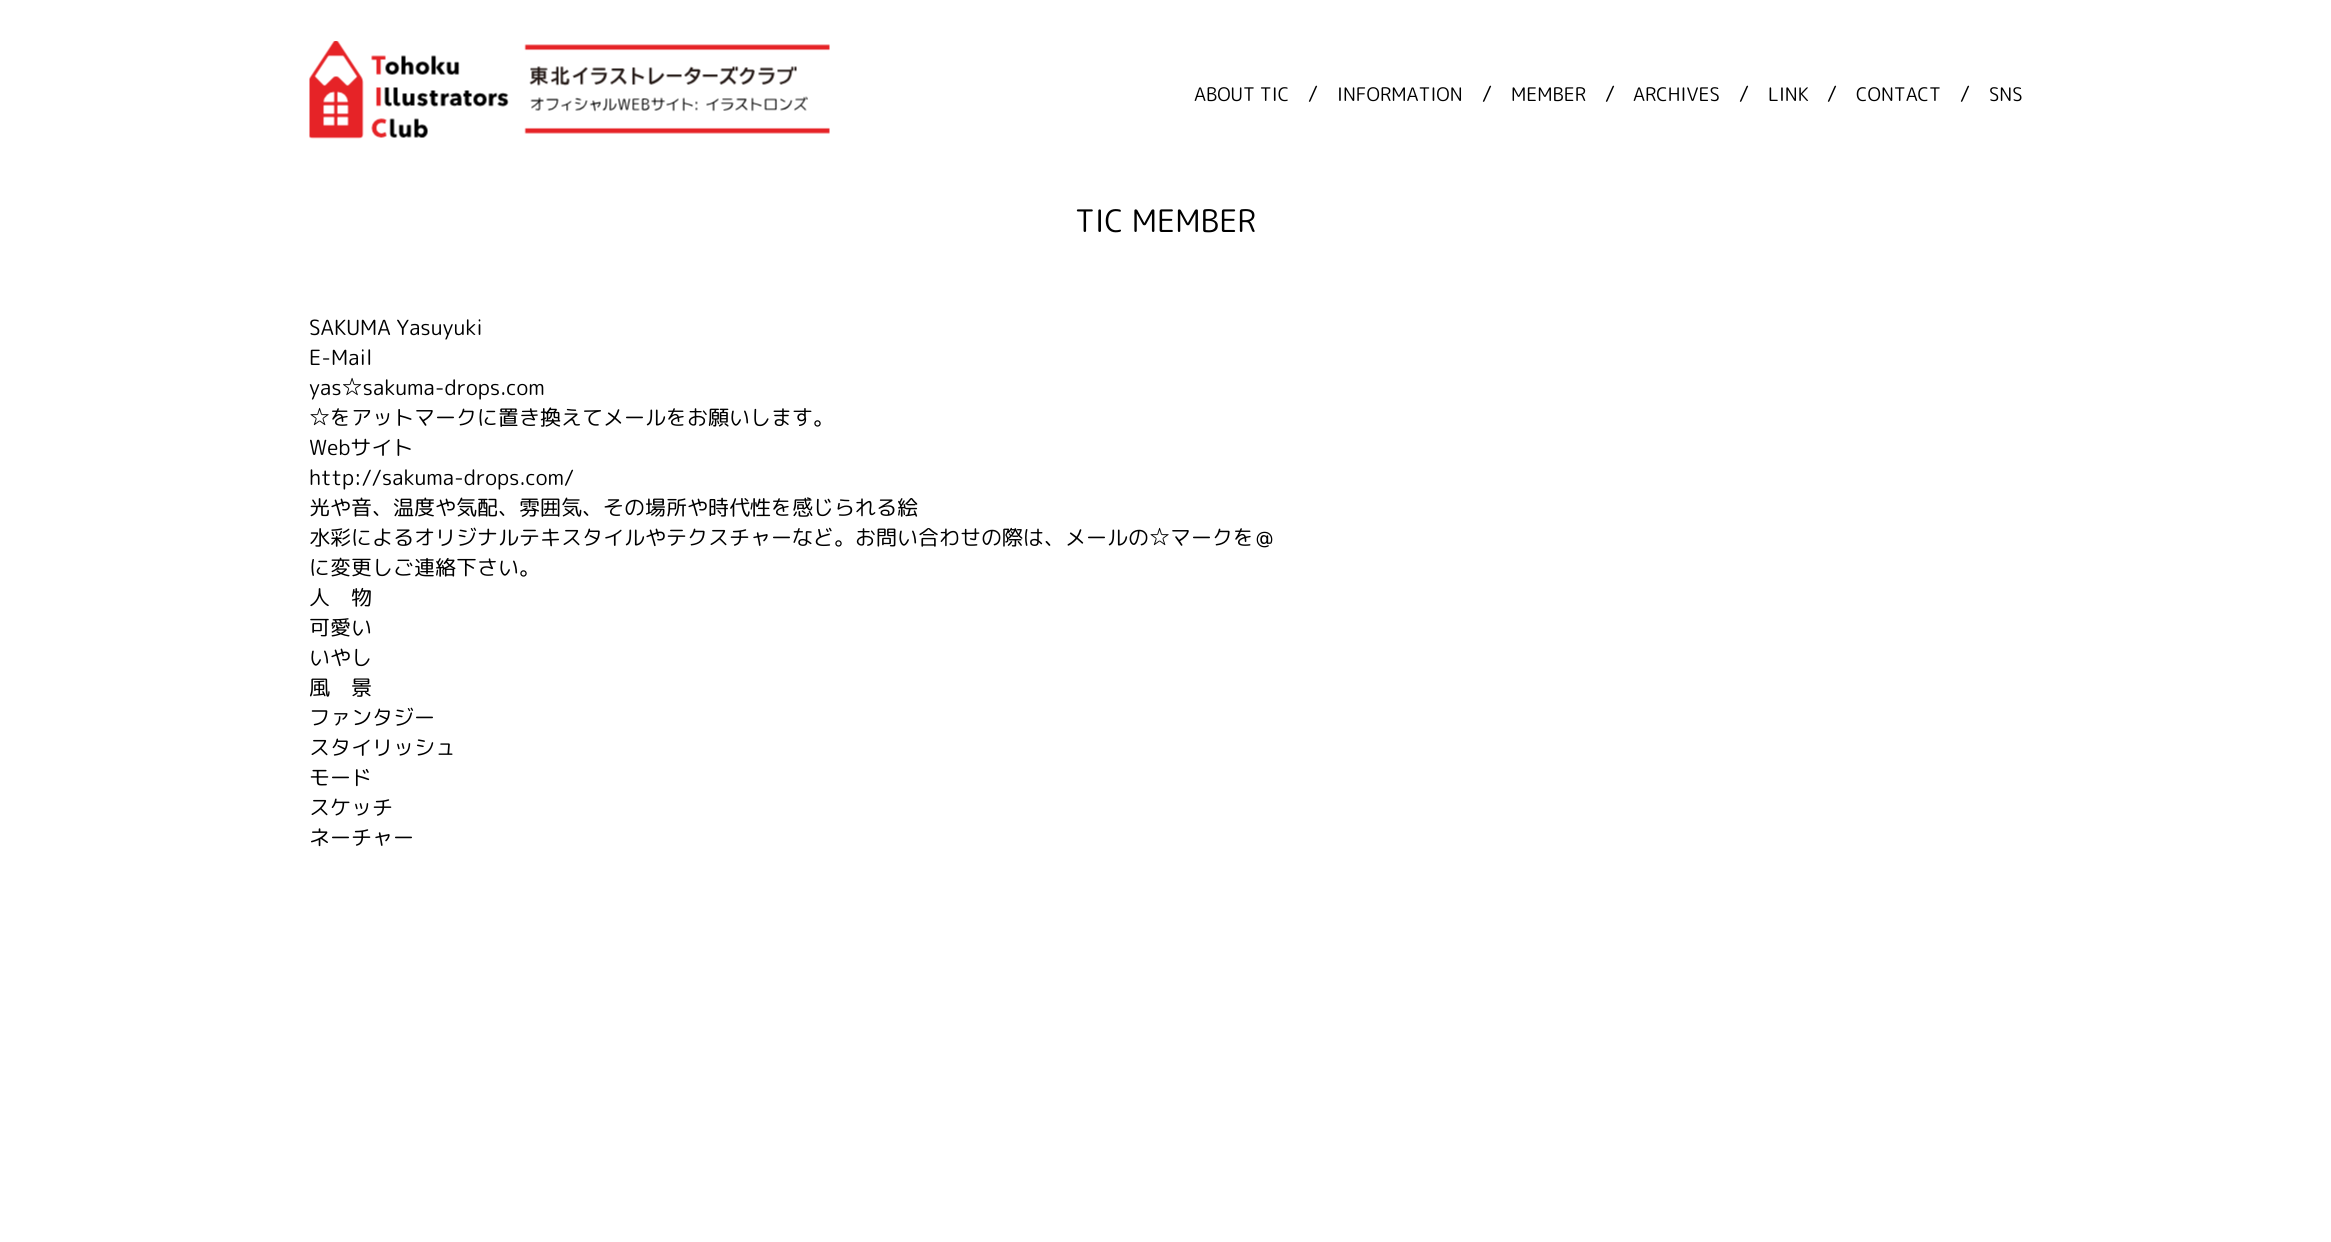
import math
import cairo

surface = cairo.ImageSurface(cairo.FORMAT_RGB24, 2331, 1242)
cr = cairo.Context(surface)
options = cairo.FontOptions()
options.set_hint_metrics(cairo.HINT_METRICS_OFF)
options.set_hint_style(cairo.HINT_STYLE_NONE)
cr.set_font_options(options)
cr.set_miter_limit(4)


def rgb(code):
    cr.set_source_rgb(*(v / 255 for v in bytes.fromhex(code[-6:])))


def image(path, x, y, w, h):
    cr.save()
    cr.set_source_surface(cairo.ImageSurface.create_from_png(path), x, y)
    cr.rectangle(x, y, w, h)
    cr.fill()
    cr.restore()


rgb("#ffffff")
cr.paint()
image("img/1.png", 309, 41, 521, 98)
cr.select_font_face("Rounded Mplus 1c")
cr.set_font_size(18.75)
rgb("#000000")
cr.move_to(1194, 101)
cr.show_text("ABOUT TIC")
cr.set_font_size(21)
cr.move_to(1308, 101)
cr.show_text("/")
cr.set_font_size(18.75)
cr.move_to(1337, 101)
cr.show_text("INFORMATION")
cr.set_font_size(21)
cr.move_to(1482, 101)
cr.show_text("/")
cr.set_font_size(18.75)
cr.move_to(1511, 101)
cr.show_text("MEMBER")
cr.set_font_size(21)
cr.move_to(1605, 101)
cr.show_text("/")
cr.set_font_size(18.75)
cr.move_to(1633, 101)
cr.show_text("ARCHIVES")
cr.set_font_size(21)
cr.move_to(1739, 101)
cr.show_text("/")
cr.set_font_size(18.75)
cr.move_to(1768, 101)
cr.show_text("LINK")
cr.set_font_size(21)
cr.move_to(1827, 101)
cr.show_text("/")
cr.set_font_size(18.75)
cr.move_to(1856, 101)
cr.show_text("CONTACT")
cr.set_font_size(21)
cr.move_to(1960, 101)
cr.show_text("/")
cr.set_font_size(18.75)
cr.move_to(1989, 101)
cr.show_text("SNS")
cr.set_font_size(31)
cr.move_to(1075, 232)
cr.show_text("TIC MEMBER")
cr.set_font_size(21)
for x, y, s in [
    (309, 335, "SAKUMA Yasuyuki"),
    (309, 365, "E-Mail"),
    (309, 395, "yas☆sakuma-drops.com"),
    (309, 425, "☆をアットマークに置き換えてメールをお願いします。"),
    (309, 455, "Webサイト"),
    (309, 485, "http://sakuma-drops.com/"),
    (309, 515, "光や音、温度や気配、雰囲気、その場所や時代性を感じられる絵"),
    (309, 545, "水彩によるオリジナルテキスタイルやテクスチャーなど。お問い合わせの際は、メールの☆マークを＠"),
    (309, 575, "に変更しご連絡下さい。"),
    (309, 605, "人　物"),
    (309, 635, "可愛い"),
    (309, 665, "いやし"),
    (309, 695, "風　景"),
    (309, 725, "ファンタジー"),
    (309, 755, "スタイリッシュ"),
    (309, 785, "モード"),
    (309, 815, "スケッチ"),
    (309, 845, "ネーチャー"),
]:
    cr.move_to(x, y)
    cr.show_text(s)
surface.write_to_png("page.png")
